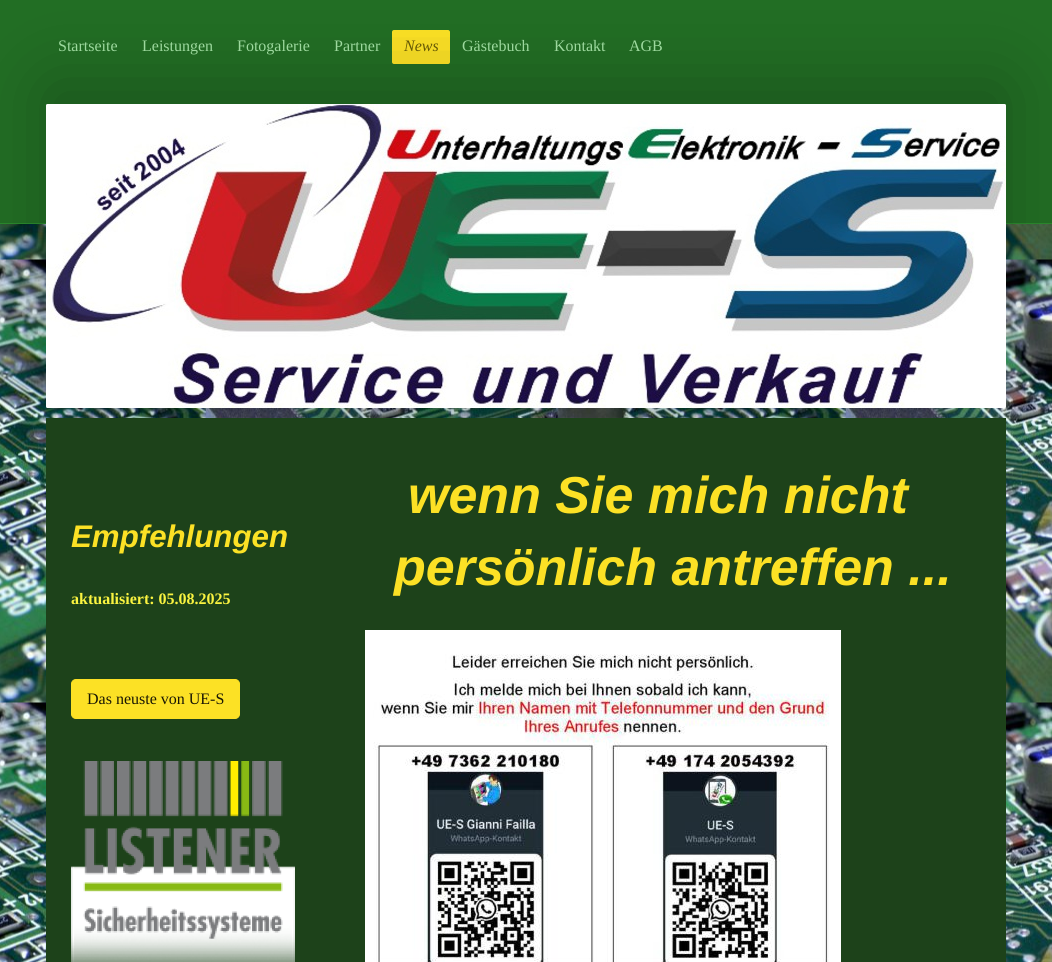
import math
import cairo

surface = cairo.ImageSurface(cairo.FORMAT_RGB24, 1052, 962)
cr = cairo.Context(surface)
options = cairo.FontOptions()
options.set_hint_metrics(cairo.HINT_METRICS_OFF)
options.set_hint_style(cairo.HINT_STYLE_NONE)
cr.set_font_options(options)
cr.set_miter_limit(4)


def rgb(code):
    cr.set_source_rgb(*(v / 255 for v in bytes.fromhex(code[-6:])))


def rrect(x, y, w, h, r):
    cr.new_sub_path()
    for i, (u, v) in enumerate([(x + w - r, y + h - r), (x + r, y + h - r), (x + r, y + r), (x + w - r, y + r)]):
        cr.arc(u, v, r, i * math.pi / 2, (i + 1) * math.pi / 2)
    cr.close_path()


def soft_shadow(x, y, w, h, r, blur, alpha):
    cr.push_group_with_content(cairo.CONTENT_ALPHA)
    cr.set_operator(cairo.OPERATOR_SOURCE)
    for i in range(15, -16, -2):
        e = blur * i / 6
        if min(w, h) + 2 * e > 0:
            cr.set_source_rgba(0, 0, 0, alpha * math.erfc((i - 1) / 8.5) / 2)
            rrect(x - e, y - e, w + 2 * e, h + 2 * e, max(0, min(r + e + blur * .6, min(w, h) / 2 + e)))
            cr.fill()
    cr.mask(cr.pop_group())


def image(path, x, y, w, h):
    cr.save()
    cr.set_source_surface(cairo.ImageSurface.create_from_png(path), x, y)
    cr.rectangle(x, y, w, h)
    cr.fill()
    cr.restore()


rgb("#ffffff")
cr.paint()
image("img/1.png", 0, 224, 1052, 738)
rgb("#226e24")
cr.rectangle(0, 0, 1052, 223)
cr.fill()
rgb("#2b8a2d")
cr.rectangle(0, 223, 1052, 1)
cr.fill()
rgb("#fce125")
rrect(392, 30, 58, 34, 2)
cr.fill()
rgb("#000000")
soft_shadow(46, 84, 960, 304, 2, 40, 0.24)
soft_shadow(96, 218, 860, 204, 0, 10, 0.18)
image("img/2.png", 46, 104, 960, 304)
image("img/3.png", 46, 104, 960, 304)
rgb("#1d421a")
cr.rectangle(46, 418, 960, 544)
cr.fill()
rgb("#fce125")
rrect(71.5, 679.5, 168, 39, 4.5)
cr.fill_preserve()
cr.set_line_width(1)
cr.stroke()
image("img/4.png", 71, 761, 224, 201)
image("img/5.png", 365, 630, 476, 332)
cr.select_font_face("Liberation Serif")
cr.set_font_size(16)
rgb("#9dd99e")
for x, y, s in [
    (58, 51, "Startseite"),
    (142, 51, "Leistungen"),
    (237, 51, "Fotogalerie"),
    (334, 51, "Partner"),
]:
    cr.move_to(x, y)
    cr.show_text(s)
cr.select_font_face("Liberation Serif", cairo.FONT_SLANT_ITALIC)
rgb("#655905")
cr.move_to(404, 51)
cr.show_text("News")
cr.select_font_face("Liberation Serif")
rgb("#9dd99e")
for x, y, s in [
    (462, 51, "Gästebuch"),
    (554, 51, "Kontakt"),
    (629, 51, "AGB"),
]:
    cr.move_to(x, y)
    cr.show_text(s)
cr.select_font_face("Liberation Sans", cairo.FONT_SLANT_ITALIC, cairo.FONT_WEIGHT_BOLD)
cr.set_font_size(31.25)
rgb("#fce125")
cr.move_to(71, 547)
cr.show_text("Empfehlungen")
cr.select_font_face("Liberation Serif", cairo.FONT_SLANT_NORMAL, cairo.FONT_WEIGHT_BOLD)
cr.set_font_size(16)
rgb("#faf340")
cr.move_to(71, 604)
cr.show_text("aktualisiert: 05.08.2025")
cr.select_font_face("Liberation Serif")
rgb("#191704")
cr.move_to(87, 704)
cr.show_text("Das neuste von UE-S")
cr.select_font_face("Liberation Sans", cairo.FONT_SLANT_ITALIC, cairo.FONT_WEIGHT_BOLD)
cr.set_font_size(52)
rgb("#fce125")
cr.move_to(408, 513)
cr.show_text("wenn Sie mich nicht")
cr.move_to(394, 585)
cr.show_text("persönlich antreffen ...")
surface.write_to_png("page.png")
